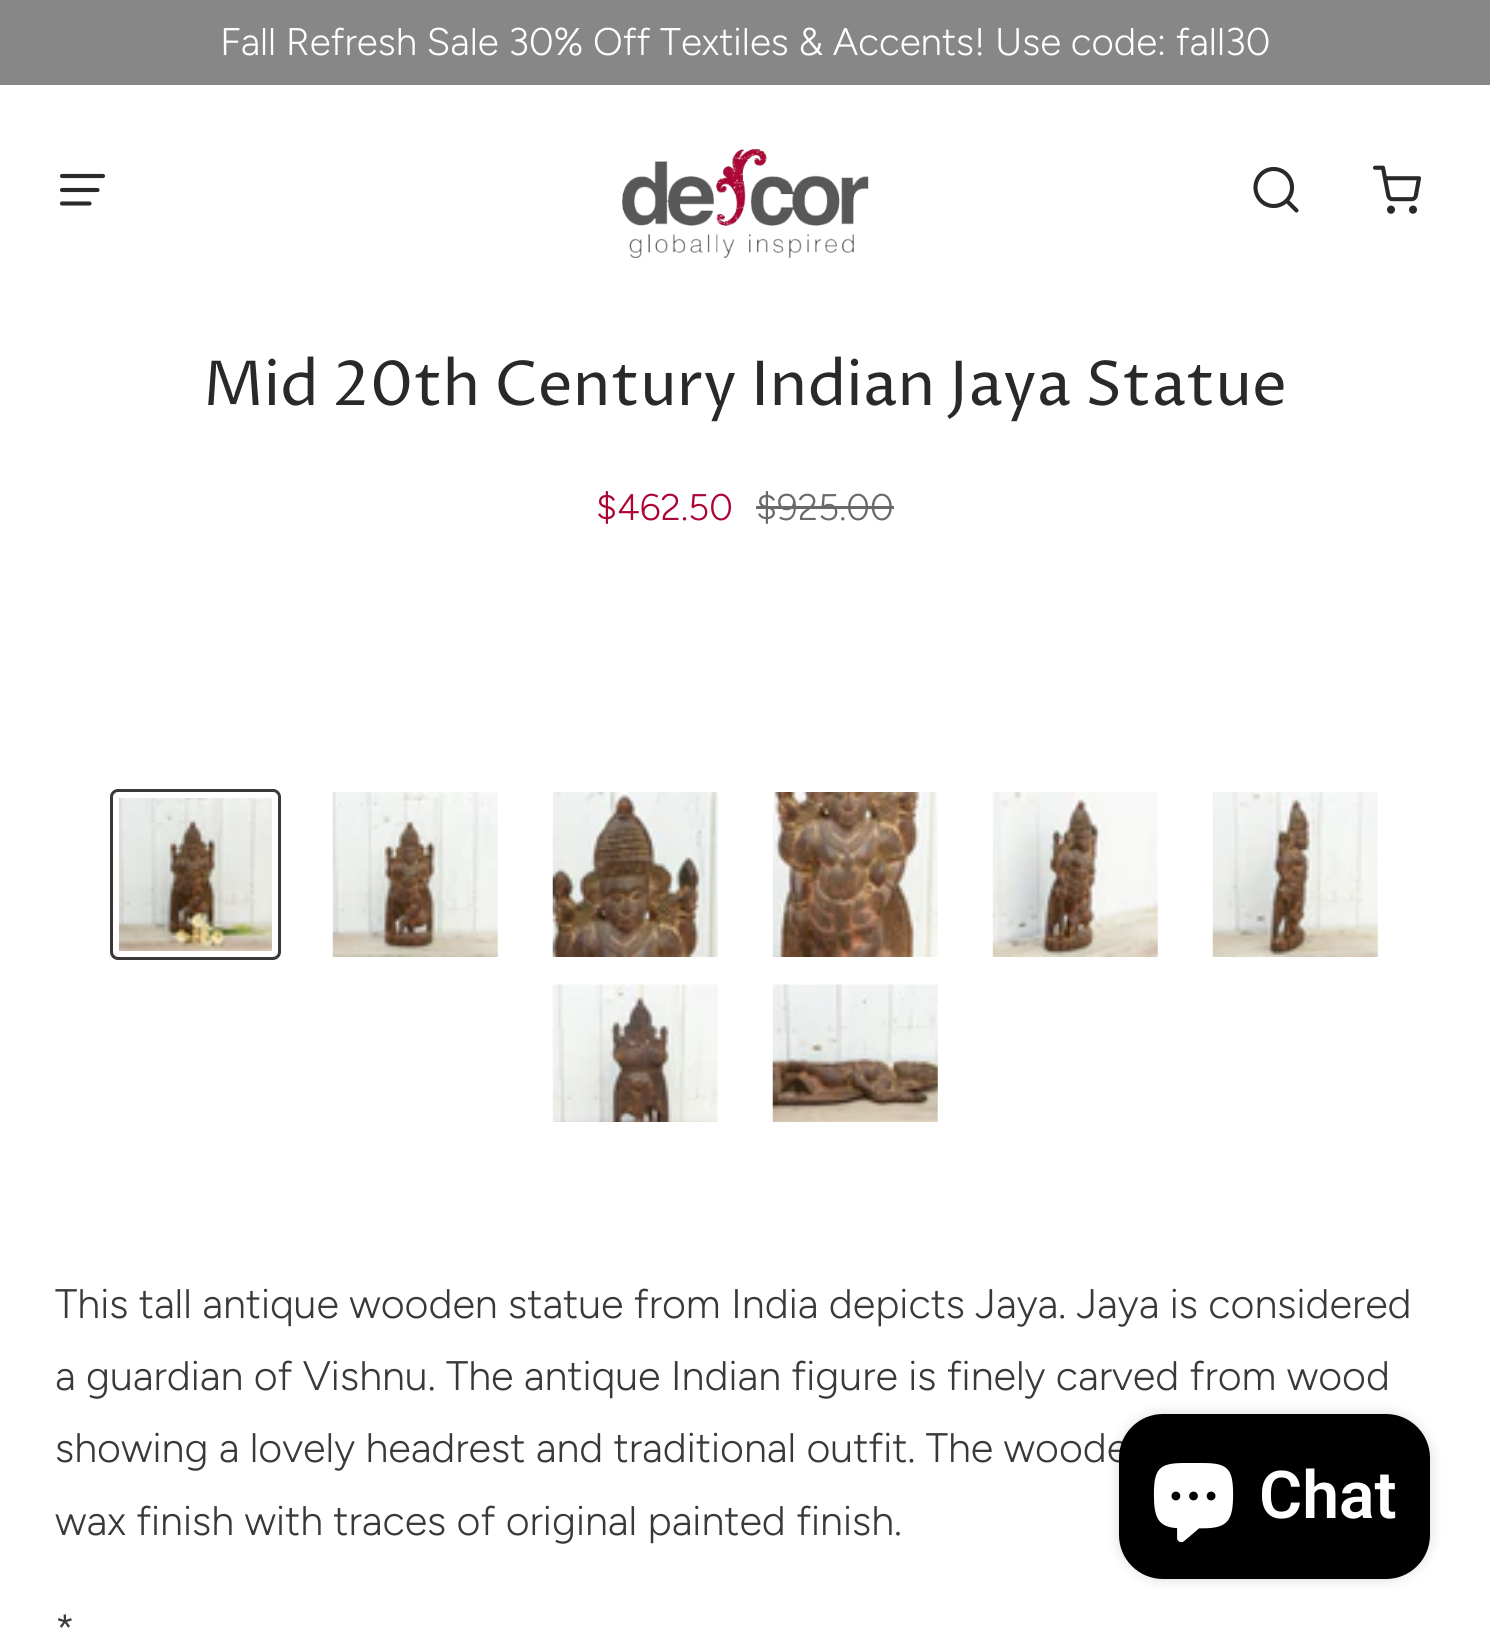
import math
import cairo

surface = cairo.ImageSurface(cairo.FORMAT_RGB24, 1490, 1634)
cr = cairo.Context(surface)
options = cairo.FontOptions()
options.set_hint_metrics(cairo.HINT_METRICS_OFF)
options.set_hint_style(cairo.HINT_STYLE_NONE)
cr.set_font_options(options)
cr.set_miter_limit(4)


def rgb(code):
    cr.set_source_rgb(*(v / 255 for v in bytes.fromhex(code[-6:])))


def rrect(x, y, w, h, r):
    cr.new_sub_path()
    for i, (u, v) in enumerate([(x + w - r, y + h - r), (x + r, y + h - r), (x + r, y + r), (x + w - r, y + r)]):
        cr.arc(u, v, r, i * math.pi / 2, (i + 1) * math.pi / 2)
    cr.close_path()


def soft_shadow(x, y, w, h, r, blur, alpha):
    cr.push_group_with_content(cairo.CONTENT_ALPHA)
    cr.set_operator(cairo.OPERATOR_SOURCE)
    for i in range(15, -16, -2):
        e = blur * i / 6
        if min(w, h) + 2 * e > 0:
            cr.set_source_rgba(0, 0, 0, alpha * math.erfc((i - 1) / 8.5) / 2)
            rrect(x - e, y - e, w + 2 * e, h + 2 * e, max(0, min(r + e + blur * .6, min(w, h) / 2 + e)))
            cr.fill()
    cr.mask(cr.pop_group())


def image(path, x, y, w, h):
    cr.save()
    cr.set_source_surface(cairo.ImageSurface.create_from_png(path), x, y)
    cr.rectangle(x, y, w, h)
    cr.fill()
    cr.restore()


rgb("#ffffff")
cr.paint()
rgb("#878788")
cr.rectangle(0, 0, 1490, 85)
cr.fill()
cr.new_path()
cr.move_to(62, 176)
cr.line_to(103, 176)
cr.move_to(62, 190)
cr.line_to(97.5, 190)
cr.move_to(62, 203.5)
cr.line_to(89.5, 203.5)
rgb("#2b2927")
cr.set_line_width(4.1)
cr.set_line_cap(cairo.LINE_CAP_ROUND)
cr.set_line_join(cairo.LINE_JOIN_ROUND)
cr.stroke()
image("img/1.png", 622, 148, 247, 111)
cr.new_path()
cr.move_to(1273.5, 169)
cr.curve_to(1263.5, 169, 1255.5, 177.5, 1255.5, 187.5)
cr.curve_to(1255.5, 197.5, 1263.5, 206, 1273.5, 206)
cr.curve_to(1284, 206, 1292, 197.5, 1292, 187.5)
cr.curve_to(1292, 177.5, 1284, 169, 1273.5, 169)
cr.close_path()
cr.move_to(1296.5, 210.5)
cr.line_to(1286.5, 200.5)
cr.close_path()
cr.stroke()
image("img/2.png", 1373, 165, 48, 49)
rgb("#6b6968")
cr.rectangle(756, 506, 138, 3)
cr.fill()
image("img/3.png", 113, 792, 165, 165)
rrect(111.5, 790.5, 168, 168, 6.5)
rgb("#3d3838")
cr.set_line_width(3)
cr.set_line_cap(cairo.LINE_CAP_BUTT)
cr.set_line_join(cairo.LINE_JOIN_MITER)
cr.stroke()
rrect(116, 795, 159, 159, 3)
rgb("#ffffff")
cr.set_line_width(6)
cr.stroke()
image("img/4.png", 332, 792, 166, 165)
image("img/5.png", 552, 792, 166, 165)
image("img/6.png", 772, 792, 166, 165)
image("img/7.png", 992, 792, 166, 165)
image("img/8.png", 1212, 792, 166, 165)
image("img/9.png", 552, 984, 166, 138)
image("img/10.png", 772, 984, 166, 138)
rgb("#000000")
soft_shadow(1119, 1414, 311, 165, 44, 7, 0.15)
cr.select_font_face("Figtree Light")
cr.set_font_size(38.5)
rgb("#ffffff")
cr.move_to(220, 55)
cr.show_text("Fall Refresh Sale 30% Off Textiles & Accents! Use code: fall30")
cr.select_font_face("Proza Libre")
cr.set_font_size(61.9)
rgb("#2b2927")
cr.move_to(203, 405)
cr.show_text("Mid 20th Century Indian Jaya Statue")
cr.select_font_face("Figtree Light")
cr.set_font_size(37)
rgb("#ac0435")
cr.move_to(596, 520)
cr.show_text("$462.50")
rgb("#6b6968")
cr.move_to(756, 520)
cr.show_text("$925.00")
cr.set_font_size(41.25)
rgb("#3d3838")
for x, y, s in [
    (55, 1318, "This tall antique wooden statue from India depicts Jaya. Jaya is considered"),
    (55, 1390, "a guardian of Vishnu. The antique Indian figure is finely carved from wood"),
    (55, 1462, "showing a lovely headrest and traditional outfit. The woode"),
    (55, 1535, "wax finish with traces of original painted finish."),
    (55, 1644, "*"),
]:
    cr.move_to(x, y)
    cr.show_text(s)
rgb("#000000")
rrect(1119, 1414, 311, 165, 44)
cr.fill()
image("img/11.png", 1153, 1463, 81, 80)
cr.select_font_face("Roboto SemiBold")
cr.set_font_size(66)
rgb("#ffffff")
cr.move_to(1259, 1518)
cr.show_text("Chat")
surface.write_to_png("page.png")
